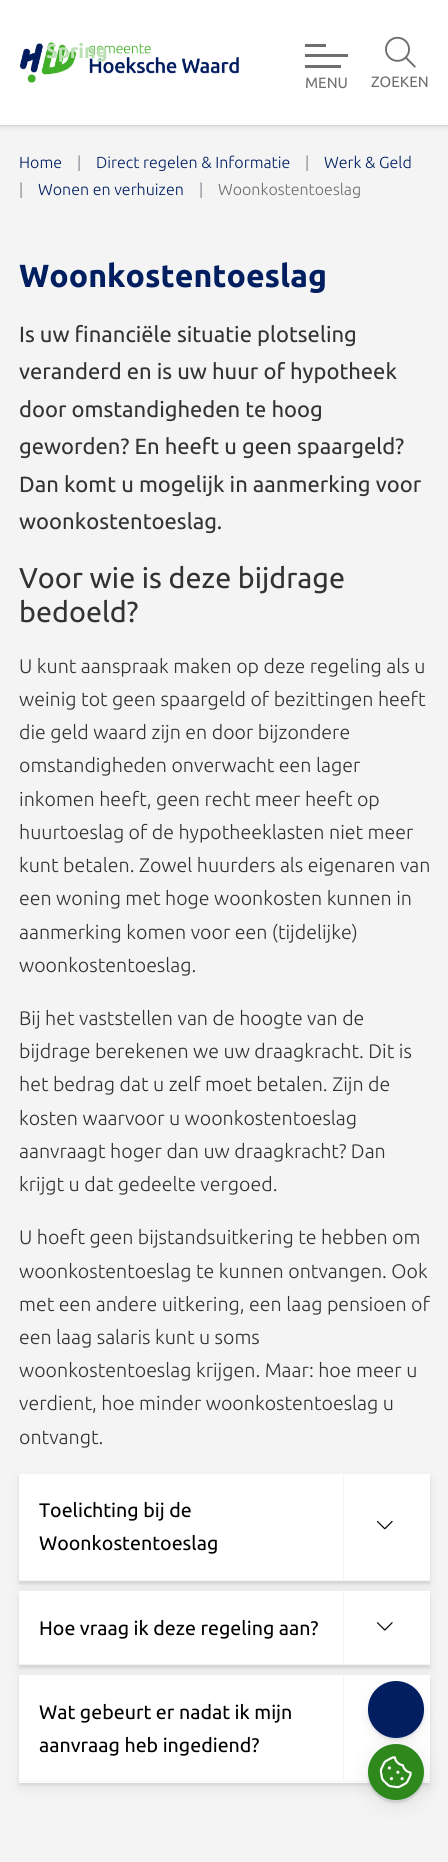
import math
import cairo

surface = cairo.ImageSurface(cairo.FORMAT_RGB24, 448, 1862)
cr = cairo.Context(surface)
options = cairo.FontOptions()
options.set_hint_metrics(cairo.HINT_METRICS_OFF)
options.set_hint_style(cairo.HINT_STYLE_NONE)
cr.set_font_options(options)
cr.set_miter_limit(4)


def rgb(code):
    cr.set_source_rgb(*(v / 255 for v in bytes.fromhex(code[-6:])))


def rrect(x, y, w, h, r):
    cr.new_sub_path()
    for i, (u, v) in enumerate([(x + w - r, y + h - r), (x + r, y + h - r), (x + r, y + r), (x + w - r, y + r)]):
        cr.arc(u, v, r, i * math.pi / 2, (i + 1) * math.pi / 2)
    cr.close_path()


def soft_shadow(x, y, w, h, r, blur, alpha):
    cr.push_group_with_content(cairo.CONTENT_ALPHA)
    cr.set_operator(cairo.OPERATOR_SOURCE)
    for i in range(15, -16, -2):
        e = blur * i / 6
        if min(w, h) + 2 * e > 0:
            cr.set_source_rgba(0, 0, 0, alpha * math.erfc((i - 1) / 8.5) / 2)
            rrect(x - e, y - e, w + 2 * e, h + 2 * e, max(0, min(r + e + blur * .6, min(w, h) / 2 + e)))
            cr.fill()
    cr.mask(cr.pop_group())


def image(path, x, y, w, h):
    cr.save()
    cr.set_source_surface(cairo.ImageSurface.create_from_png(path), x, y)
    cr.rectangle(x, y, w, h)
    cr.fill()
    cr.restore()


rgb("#f4f4f4")
cr.paint()
rgb("#282c35")
soft_shadow(0, 1, 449, 125, 0, 0.5, 0.1)
soft_shadow(0, 3, 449, 125, 0, 2, 0.08)
rgb("#ffffff")
cr.rectangle(0, 0, 448, 125)
cr.fill()
image("img/1.png", 20, 42, 219, 41)
for x, y, w, h, color in [
    (305, 44, 21, 3, "#6e6e6e"),
    (305, 54, 43, 3, "#6e6e6e"),
    (305, 65, 36, 3, "#6e6e6e"),
]:
    rgb(color)
    cr.rectangle(x, y, w, h)
    cr.fill()
image("img/2.png", 385, 36, 31, 32)
rgb("#282c35")
soft_shadow(19, 1476, 411, 108, 0, 1, 0.1)
soft_shadow(19, 1479, 411, 107, 0, 6, 0.08)
soft_shadow(19, 1596, 411, 74, 0, 6, 0.08)
for x, y, w, h, color in [
    (19, 1474, 411, 106, "#ffffff"),
    (19, 1580, 411, 1, "#f4f4f4"),
    (343, 1474, 1, 106, "#f4f4f4"),
]:
    rgb(color)
    cr.rectangle(x, y, w, h)
    cr.fill()
image("img/3.png", 376, 1520, 17, 10)
rgb("#282c35")
soft_shadow(19, 1594, 411, 74, 0, 1, 0.1)
soft_shadow(19, 1680, 411, 108, 0, 6, 0.08)
for x, y, w, h, color in [
    (19, 1591, 411, 73, "#ffffff"),
    (19, 1664, 411, 1, "#f4f4f4"),
    (343, 1591, 1, 73, "#f4f4f4"),
]:
    rgb(color)
    cr.rectangle(x, y, w, h)
    cr.fill()
image("img/4.png", 376, 1622, 17, 9)
rgb("#282c35")
soft_shadow(19, 1678, 411, 107, 0, 1, 0.1)
for x, y, w, h, color in [
    (19, 1675, 411, 108, "#ffffff"),
    (19, 1781, 411, 1, "#f4f4f4"),
    (343, 1675, 1, 106, "#f4f4f4"),
]:
    rgb(color)
    cr.rectangle(x, y, w, h)
    cr.fill()
rgb("#282c35")
soft_shadow(368, 1684, 56, 56, 28, 1, 0.1)
soft_shadow(368, 1746, 56, 57, 28, 1, 0.14)
soft_shadow(368, 1749, 56, 56, 28, 9.5, 0.1)
rgb("#2f881b")
cr.arc(396, 1772, 28, 0, 2 * math.pi)
cr.fill()
image("img/5.png", 379, 1756, 33, 33)
rgb("#282c35")
soft_shadow(368, 1686, 56, 57, 28, 6, 0.08)
rgb("#001e60")
rrect(368, 1681, 56, 57, 28)
cr.fill()
cr.select_font_face("Ubuntu", cairo.FONT_SLANT_NORMAL, cairo.FONT_WEIGHT_BOLD)
cr.set_font_size(20)
rgb("#bbe0b3")
cr.move_to(46, 58)
cr.show_text("Spring")
cr.select_font_face("Ubuntu")
cr.set_font_size(15)
rgb("#6e6e6e")
cr.move_to(305, 88)
cr.show_text("MENU")
cr.move_to(371, 87)
cr.show_text("ZOEKEN")
cr.select_font_face("Ubuntu Light")
cr.set_font_size(16)
rgb("#001e60")
cr.move_to(19, 168)
cr.show_text("Home")
rgb("#6c757d")
cr.move_to(77, 168)
cr.show_text("|")
rgb("#001e60")
cr.move_to(96, 168)
cr.show_text("Direct regelen & Informatie")
rgb("#6c757d")
cr.move_to(305, 168)
cr.show_text("|")
rgb("#001e60")
cr.move_to(324, 168)
cr.show_text("Werk & Geld")
rgb("#6c757d")
cr.move_to(19, 195)
cr.show_text("|")
rgb("#001e60")
cr.move_to(38, 195)
cr.show_text("Wonen en verhuizen")
rgb("#6c757d")
cr.move_to(199, 195)
cr.show_text("|")
rgb("#6e6e6e")
cr.move_to(218, 195)
cr.show_text("Woonkostentoeslag")
cr.select_font_face("Ubuntu", cairo.FONT_SLANT_NORMAL, cairo.FONT_WEIGHT_BOLD)
cr.set_font_size(32)
rgb("#001e60")
cr.move_to(19, 287)
cr.show_text("Woonkostentoeslag")
cr.select_font_face("Ubuntu")
cr.set_font_size(22)
rgb("#333333")
for x, y, s in [
    (19, 342, "Is uw financiële situatie plotseling"),
    (19, 379, "veranderd en is uw huur of hypotheek"),
    (19, 417, "door omstandigheden te hoog"),
    (19, 454, "geworden? En heeft u geen spaargeld?"),
    (19, 492, "Dan komt u mogelijk in aanmerking voor"),
    (19, 529, "woonkostentoeslag."),
]:
    cr.move_to(x, y)
    cr.show_text(s)
cr.set_font_size(28.75)
cr.move_to(19, 588)
cr.show_text("Voor wie is deze bijdrage")
cr.move_to(19, 622)
cr.show_text("bedoeld?")
cr.select_font_face("Ubuntu Light")
cr.set_font_size(19.6)
for x, y, s in [
    (19, 673, "U kunt aanspraak maken op deze regeling als u"),
    (19, 706, "weinig tot geen spaargeld of bezittingen heeft"),
    (19, 739, "die geld waard zijn en door bijzondere"),
    (19, 772, "omstandigheden onverwacht een lager"),
    (19, 806, "inkomen heeft, geen recht meer heeft op"),
    (19, 839, "huurtoeslag of de hypotheeklasten niet meer"),
    (19, 872, "kunt betalen. Zowel huurders als eigenaren van"),
    (19, 905, "een woning met hoge woonkosten kunnen in"),
    (19, 939, "aanmerking komen voor een (tijdelijke)"),
    (19, 972, "woonkostentoeslag."),
    (19, 1025, "Bij het vaststellen van de hoogte van de"),
    (19, 1058, "bijdrage berekenen we uw draagkracht. Dit is"),
    (19, 1091, "het bedrag dat u zelf moet betalen. Zijn de"),
    (19, 1125, "kosten waarvoor u woonkostentoeslag"),
    (19, 1158, "aanvraagt hoger dan uw draagkracht? Dan"),
    (19, 1191, "krijgt u dat gedeelte vergoed."),
    (19, 1244, "U hoeft geen bijstandsuitkering te hebben om"),
    (19, 1278, "woonkostentoeslag te kunnen ontvangen. Ook"),
    (19, 1311, "met een andere uitkering, een laag pensioen of"),
    (19, 1344, "een laag salaris kunt u soms"),
    (19, 1377, "woonkostentoeslag krijgen. Maar: hoe meer u"),
    (19, 1410, "verdient, hoe minder woonkostentoeslag u"),
    (19, 1444, "ontvangt."),
]:
    cr.move_to(x, y)
    cr.show_text(s)
cr.select_font_face("Ubuntu")
rgb("#000000")
for x, y, s in [
    (39, 1517, "Toelichting bij de"),
    (39, 1550, "Woonkostentoeslag"),
    (39, 1635, "Hoe vraag ik deze regeling aan?"),
    (39, 1719, "Wat gebeurt er nadat ik mijn"),
    (39, 1752, "aanvraag heb ingediend?"),
]:
    cr.move_to(x, y)
    cr.show_text(s)
surface.write_to_png("page.png")
